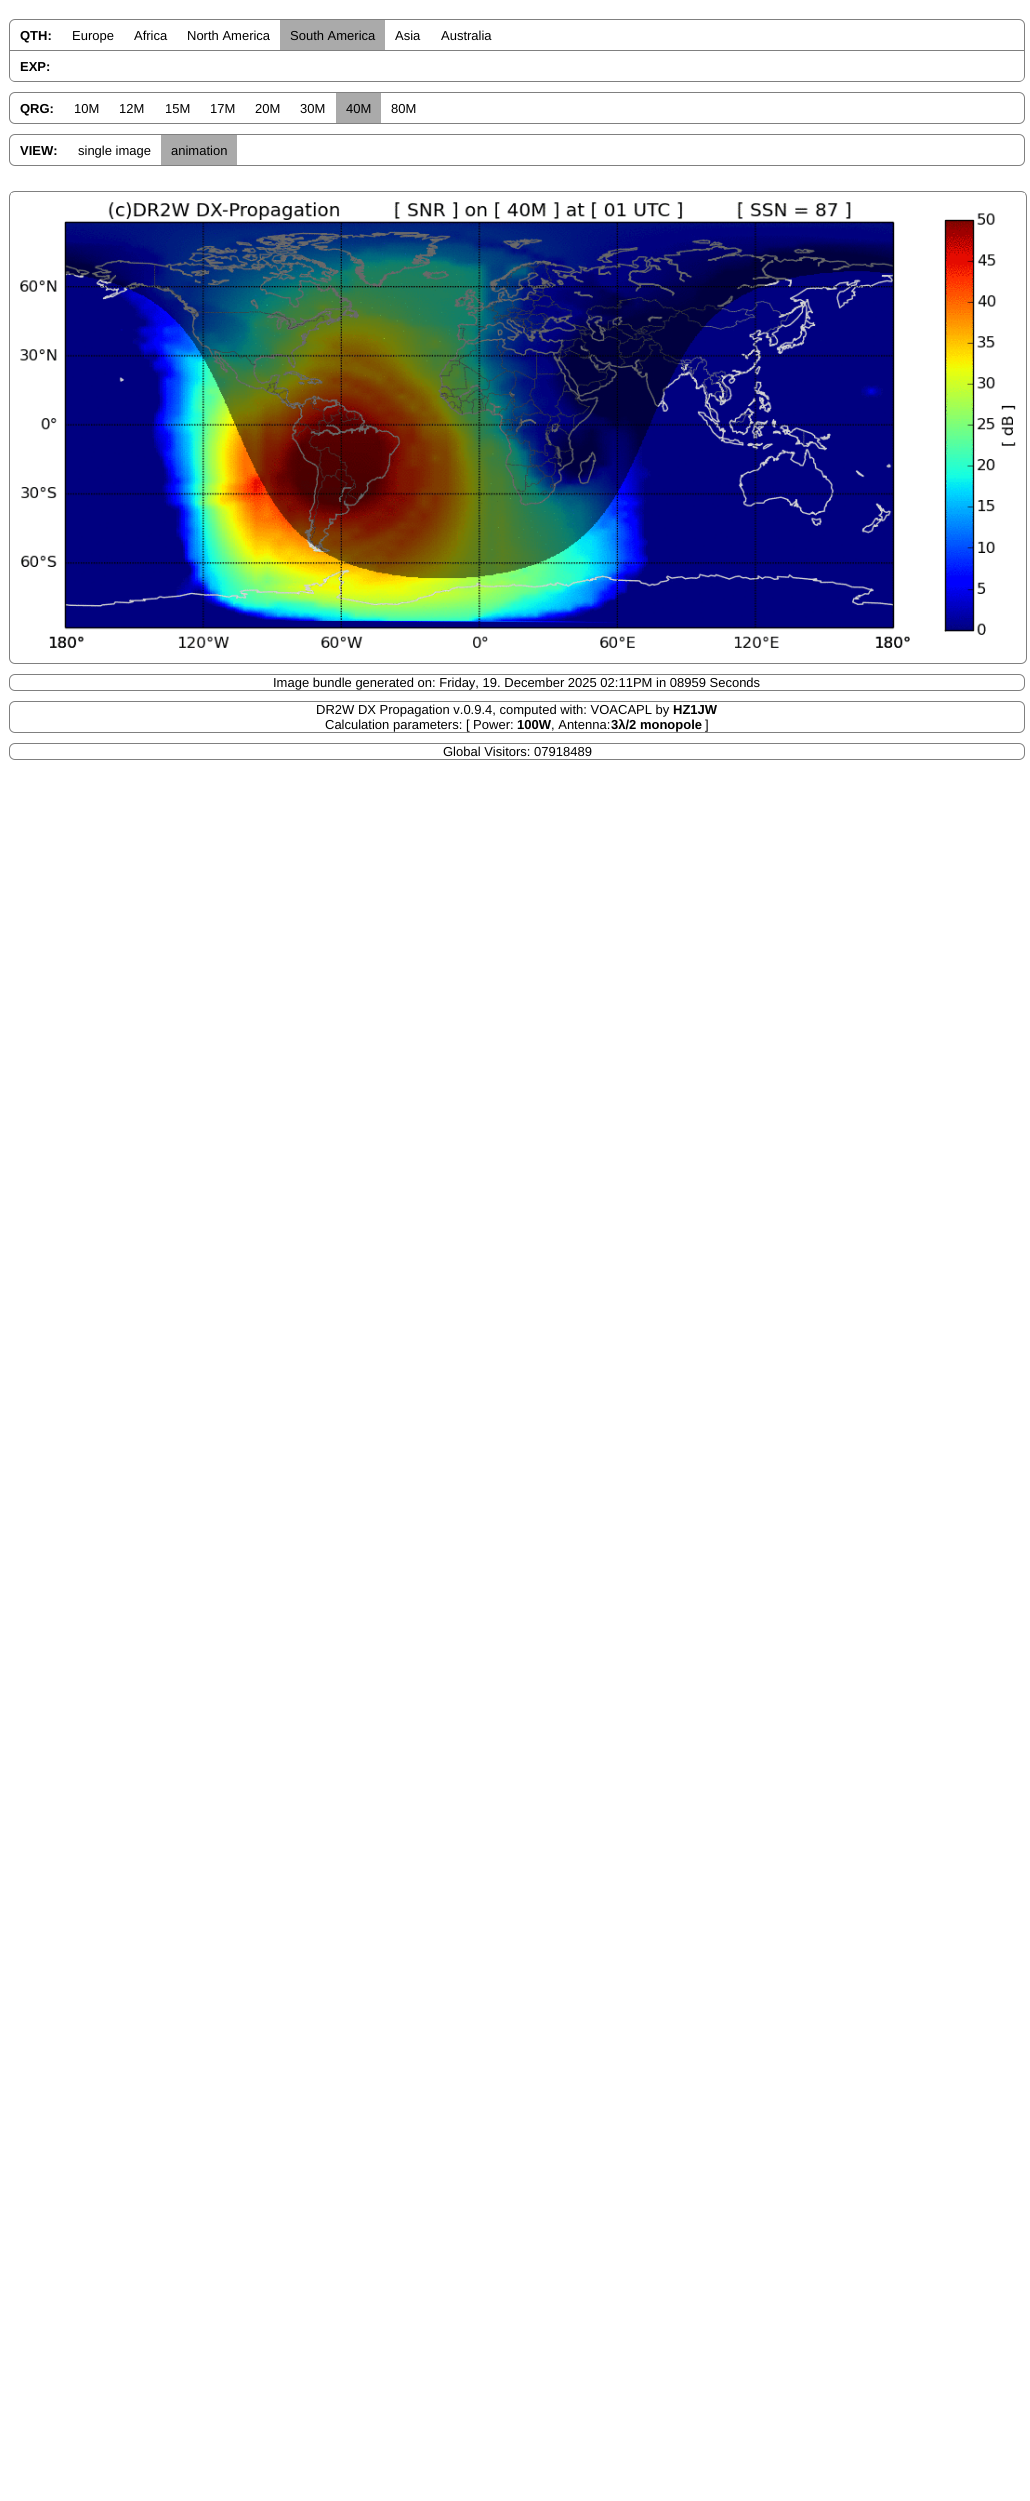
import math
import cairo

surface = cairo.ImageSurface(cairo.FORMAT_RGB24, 1030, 2501)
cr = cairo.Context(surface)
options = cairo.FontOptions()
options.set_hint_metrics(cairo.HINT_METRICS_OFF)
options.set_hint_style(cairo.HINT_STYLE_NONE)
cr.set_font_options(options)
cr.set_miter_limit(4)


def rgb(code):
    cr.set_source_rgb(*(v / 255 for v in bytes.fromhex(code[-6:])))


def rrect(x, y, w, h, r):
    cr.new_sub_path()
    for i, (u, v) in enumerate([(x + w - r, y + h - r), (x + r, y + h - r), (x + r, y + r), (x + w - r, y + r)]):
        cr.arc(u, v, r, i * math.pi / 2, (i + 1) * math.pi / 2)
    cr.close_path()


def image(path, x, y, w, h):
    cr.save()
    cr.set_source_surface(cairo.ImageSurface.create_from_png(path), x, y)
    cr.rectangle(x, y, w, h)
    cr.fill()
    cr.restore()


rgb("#ffffff")
cr.paint()
cr.new_path()
cr.move_to(15, 19.5)
cr.line_to(1019, 19.5)
cr.curve_to(1022, 19.5, 1024.5, 22, 1024.5, 25)
cr.line_to(1024.5, 50.5)
cr.line_to(9.5, 50.5)
cr.line_to(9.5, 25)
cr.curve_to(9.5, 22, 12, 19.5, 15, 19.5)
cr.close_path()
rgb("#808080")
cr.set_line_width(1)
cr.stroke()
rgb("#aaaaaa")
cr.rectangle(280, 20, 105, 30)
cr.fill()
rgb("#808080")
cr.set_fill_rule(cairo.FILL_RULE_EVEN_ODD)
cr.new_path()
cr.move_to(9, 51)
cr.line_to(1025, 51)
cr.line_to(1025, 76)
cr.curve_to(1025, 79, 1022, 82, 1019, 82)
cr.line_to(15, 82)
cr.curve_to(12, 82, 9, 79, 9, 76)
cr.close_path()
cr.move_to(10, 51)
cr.line_to(1024, 51)
cr.line_to(1024, 76)
cr.curve_to(1024, 79, 1022, 81, 1019, 81)
cr.line_to(15, 81)
cr.curve_to(12, 81, 10, 79, 10, 76)
cr.close_path()
cr.fill()
rrect(9.5, 92.5, 1015, 31, 5.5)
cr.stroke()
rgb("#aaaaaa")
cr.rectangle(336, 93, 45, 30)
cr.fill()
rrect(9.5, 134.5, 1015, 31, 5.5)
rgb("#808080")
cr.stroke()
rgb("#aaaaaa")
cr.rectangle(161, 135, 76, 30)
cr.fill()
rrect(9.5, 191.5, 1017, 472, 5.5)
rgb("#808080")
cr.stroke()
image("img/1.png", 11, 193, 1014, 455)
rrect(9.5, 674.5, 1015, 16, 5.5)
cr.stroke()
rrect(9.5, 701.5, 1015, 31, 5.5)
cr.stroke()
rrect(9.5, 743.5, 1015, 16, 5.5)
cr.stroke()
cr.select_font_face("Liberation Sans", cairo.FONT_SLANT_NORMAL, cairo.FONT_WEIGHT_BOLD)
cr.set_font_size(13)
rgb("#000000")
cr.move_to(20, 40)
cr.show_text("QTH:")
cr.select_font_face("Liberation Sans")
for x, y, s in [
    (72, 40, "Europe"),
    (134, 40, "Africa"),
    (187, 40, "North America"),
    (290, 40, "South America"),
    (395, 40, "Asia"),
    (441, 40, "Australia"),
]:
    cr.move_to(x, y)
    cr.show_text(s)
cr.select_font_face("Liberation Sans", cairo.FONT_SLANT_NORMAL, cairo.FONT_WEIGHT_BOLD)
cr.move_to(20, 71)
cr.show_text("EXP:")
cr.move_to(20, 113)
cr.show_text("QRG:")
cr.select_font_face("Liberation Sans")
for x, y, s in [
    (74, 113, "10M"),
    (119, 113, "12M"),
    (165, 113, "15M"),
    (210, 113, "17M"),
    (255, 113, "20M"),
    (300, 113, "30M"),
    (346, 113, "40M"),
    (391, 113, "80M"),
]:
    cr.move_to(x, y)
    cr.show_text(s)
cr.select_font_face("Liberation Sans", cairo.FONT_SLANT_NORMAL, cairo.FONT_WEIGHT_BOLD)
cr.move_to(20, 155)
cr.show_text("VIEW:")
cr.select_font_face("Liberation Sans")
for x, y, s in [
    (78, 155, "single image"),
    (171, 155, "animation"),
    (273, 687, "Image bundle generated on: Friday, 19. December 2025 02:11PM in 08959 Seconds"),
    (316, 714, "DR2W DX Propagation v.0.9.4, computed with: VOACAPL by"),
]:
    cr.move_to(x, y)
    cr.show_text(s)
cr.select_font_face("Liberation Sans", cairo.FONT_SLANT_NORMAL, cairo.FONT_WEIGHT_BOLD)
cr.move_to(673, 714)
cr.show_text("HZ1JW")
cr.select_font_face("Liberation Sans")
cr.move_to(325, 729)
cr.show_text("Calculation parameters: [ Power:")
cr.select_font_face("Liberation Sans", cairo.FONT_SLANT_NORMAL, cairo.FONT_WEIGHT_BOLD)
cr.move_to(517, 729)
cr.show_text("100W")
cr.select_font_face("Liberation Sans")
cr.move_to(551, 729)
cr.show_text(", Antenna:")
cr.select_font_face("Liberation Sans", cairo.FONT_SLANT_NORMAL, cairo.FONT_WEIGHT_BOLD)
cr.move_to(611, 729)
cr.show_text("3λ/2 monopole")
cr.select_font_face("Liberation Sans")
cr.move_to(705, 729)
cr.show_text("]")
cr.move_to(443, 756)
cr.show_text("Global Visitors: 07918489")
surface.write_to_png("page.png")
